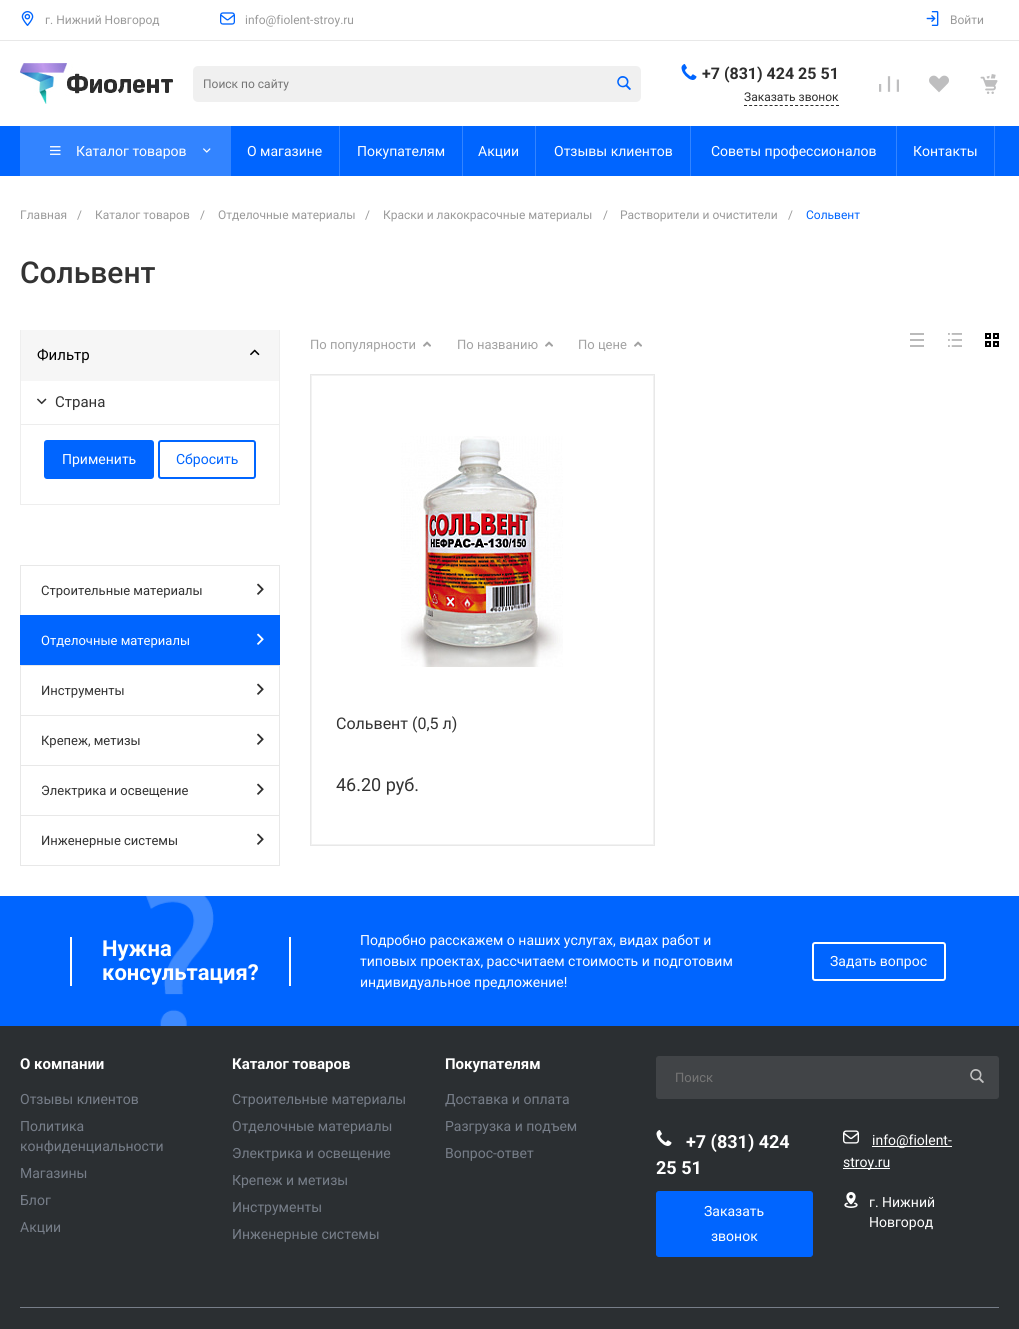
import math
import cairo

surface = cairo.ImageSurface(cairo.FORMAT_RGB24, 1019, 1329)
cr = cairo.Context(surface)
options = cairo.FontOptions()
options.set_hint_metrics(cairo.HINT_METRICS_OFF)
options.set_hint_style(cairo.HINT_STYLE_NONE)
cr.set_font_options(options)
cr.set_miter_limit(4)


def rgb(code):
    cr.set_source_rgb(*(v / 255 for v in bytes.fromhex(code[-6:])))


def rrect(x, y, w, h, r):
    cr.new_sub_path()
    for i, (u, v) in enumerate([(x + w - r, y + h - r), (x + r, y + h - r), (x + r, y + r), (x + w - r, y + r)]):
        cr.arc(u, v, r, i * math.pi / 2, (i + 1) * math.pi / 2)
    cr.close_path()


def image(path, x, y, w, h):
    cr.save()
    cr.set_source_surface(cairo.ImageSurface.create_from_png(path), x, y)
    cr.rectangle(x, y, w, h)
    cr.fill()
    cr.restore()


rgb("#ffffff")
cr.paint()
rgb("#e8e8e8")
cr.rectangle(0, 40, 1019, 1)
cr.fill()
image("img/1.png", 21, 11, 13, 15)
image("img/2.png", 220, 12, 15, 13)
image("img/3.png", 926, 11, 13, 15)
image("img/4.png", 20, 63, 153, 41)
rgb("#f0f0f0")
rrect(193, 66, 448, 36, 5)
cr.fill()
image("img/5.png", 617, 76, 14, 14)
image("img/6.png", 681, 64, 16, 16)
cr.new_path()
cr.move_to(744, 105.5)
cr.line_to(839, 105.5)
rgb("#2d2d2d")
cr.set_line_width(1)
cr.set_dash([3, 2.11])
cr.stroke()
image("img/7.png", 879, 76, 20, 16)
image("img/8.png", 929, 75, 20, 18)
image("img/9.png", 980, 74, 18, 20)
rgb("#0065ff")
cr.rectangle(0, 126, 1019, 50)
cr.fill()
rgb("#3384ff")
cr.rectangle(20, 126, 211, 50)
cr.fill()
image("img/10.png", 50, 146, 11, 9)
image("img/11.png", 203, 148, 8, 5)
for x, y, w, h, color in [
    (339, 126, 1, 50, "#3384ff"),
    (462, 126, 1, 50, "#3384ff"),
    (535, 126, 1, 50, "#3384ff"),
    (690, 126, 1, 50, "#3384ff"),
    (896, 126, 1, 50, "#3384ff"),
    (994, 126, 1, 50, "#3384ff"),
    (279, 330, 1, 175, "#eeeeee"),
    (20, 504, 260, 1, "#eeeeee"),
    (20, 330, 1, 175, "#eeeeee"),
    (21, 330, 258, 51, "#f6f6f6"),
]:
    rgb(color)
    cr.rectangle(x, y, w, h)
    cr.fill()
image("img/12.png", 250, 349, 10, 7)
rgb("#ededed")
cr.rectangle(21, 424, 258, 1)
cr.fill()
image("img/13.png", 37, 398, 10, 7)
rgb("#0065ff")
rrect(45, 441, 108, 37, 2)
cr.fill_preserve()
cr.set_line_width(2)
cr.set_dash([])
cr.stroke()
rrect(159, 441, 96, 37, 2)
cr.stroke()
for x, y, w, h, color in [
    (20, 565, 260, 1, "#e8e8e8"),
    (279, 565, 1, 50, "#e8e8e8"),
    (20, 565, 1, 50, "#e8e8e8"),
]:
    rgb(color)
    cr.rectangle(x, y, w, h)
    cr.fill()
image("img/14.png", 257, 583, 7, 12)
rgb("#0065ff")
cr.rectangle(20, 615, 260, 50)
cr.fill()
image("img/15.png", 257, 633, 7, 12)
for x, y, w, h, color in [
    (20, 665, 260, 1, "#e8e8e8"),
    (279, 665, 1, 50, "#e8e8e8"),
    (20, 665, 1, 50, "#e8e8e8"),
]:
    rgb(color)
    cr.rectangle(x, y, w, h)
    cr.fill()
image("img/14.png", 257, 683, 7, 12)
for x, y, w, h, color in [
    (20, 715, 260, 1, "#e8e8e8"),
    (279, 715, 1, 50, "#e8e8e8"),
    (20, 715, 1, 50, "#e8e8e8"),
]:
    rgb(color)
    cr.rectangle(x, y, w, h)
    cr.fill()
image("img/14.png", 257, 733, 7, 12)
for x, y, w, h, color in [
    (20, 765, 260, 1, "#e8e8e8"),
    (279, 765, 1, 50, "#e8e8e8"),
    (20, 765, 1, 50, "#e8e8e8"),
]:
    rgb(color)
    cr.rectangle(x, y, w, h)
    cr.fill()
image("img/14.png", 257, 783, 7, 12)
cr.rectangle(20.5, 815.5, 259, 50)
cr.set_line_width(1)
cr.stroke()
image("img/14.png", 257, 833, 7, 12)
image("img/16.png", 423, 341, 8, 6)
image("img/16.png", 545, 341, 8, 6)
image("img/16.png", 634, 341, 8, 6)
image("img/17.png", 910, 333, 14, 14)
image("img/18.png", 948, 333, 14, 14)
image("img/19.png", 985, 333, 14, 14)
cr.rectangle(311.5, 375.5, 342, 469)
rgb("#f2f2f2")
cr.stroke()
cr.rectangle(310.5, 374.5, 344, 471)
rgb("#e8e8e8")
cr.stroke()
image("img/20.png", 401, 436, 162, 231)
rgb("#0065ff")
cr.rectangle(0, 896, 1019, 130)
cr.fill()
image("img/21.png", 146, 896, 68, 130)
rgb("#ffffff")
cr.rectangle(289, 937, 2, 49)
cr.fill()
cr.rectangle(70, 937, 2, 49)
cr.fill()
rrect(813, 943, 132, 37, 2)
cr.set_line_width(2)
cr.stroke()
rgb("#2b2f32")
cr.rectangle(0, 1026, 1019, 303)
cr.fill()
rgb("#414447")
rrect(656.5, 1056.5, 342, 42, 2.5)
cr.fill_preserve()
cr.set_line_width(1)
cr.stroke()
image("img/22.png", 970, 1069, 14, 14)
image("img/23.png", 656, 1130, 16, 16)
rgb("#0065ff")
rrect(656.5, 1191.5, 156, 65, 2.5)
cr.fill_preserve()
cr.stroke()
image("img/24.png", 843, 1130, 16, 14)
rgb("#ffffff")
cr.rectangle(872, 1146, 80, 1)
cr.fill()
cr.rectangle(843, 1168, 47, 1)
cr.fill()
image("img/25.png", 844, 1192, 14, 16)
rgb("#777e89")
cr.rectangle(20, 1307, 979, 1)
cr.fill()
cr.select_font_face("Roboto")
cr.set_font_size(12)
rgb("#9a9a9a")
for x, y, s in [
    (45, 24, "г. Нижний Новгород"),
    (245, 24, "info@fiolent-stroy.ru"),
    (950, 24, "Войти"),
]:
    cr.move_to(x, y)
    cr.show_text(s)
rgb("#757575")
cr.move_to(203, 88)
cr.show_text("Поиск по сайту")
cr.select_font_face("Roboto", cairo.FONT_SLANT_NORMAL, cairo.FONT_WEIGHT_BOLD)
cr.set_font_size(16)
rgb("#2d2d2d")
cr.move_to(702, 79)
cr.show_text("+7 (831) 424 25 51")
cr.select_font_face("Roboto")
cr.set_font_size(12)
cr.move_to(744, 101)
cr.show_text("Заказать звонок")
cr.set_font_size(14)
rgb("#ffffff")
for x, y, s in [
    (76, 156, "Каталог товаров"),
    (247, 156, "О магазине"),
    (357, 156, "Покупателям"),
    (478, 156, "Акции"),
    (554, 156, "Отзывы клиентов"),
    (711, 156, "Советы профессионалов"),
    (913, 156, "Контакты"),
]:
    cr.move_to(x, y)
    cr.show_text(s)
cr.set_font_size(12)
rgb("#9a9a9a")
for x, y, s in [
    (20, 219, "Главная"),
    (77, 219, "/"),
    (95, 219, "Каталог товаров"),
    (200, 219, "/"),
    (218, 219, "Отделочные материалы"),
    (365, 219, "/"),
    (383, 219, "Краски и лакокрасочные материалы"),
    (603, 219, "/"),
    (620, 219, "Растворители и очистители"),
    (788, 219, "/"),
]:
    cr.move_to(x, y)
    cr.show_text(s)
rgb("#0065ff")
cr.move_to(806, 219)
cr.show_text("Сольвент")
cr.select_font_face("Roboto Medium")
cr.set_font_size(30)
rgb("#333333")
cr.move_to(20, 283)
cr.show_text("Сольвент")
cr.select_font_face("Roboto")
cr.set_font_size(15)
rgb("#000000")
cr.move_to(37, 360)
cr.show_text("Фильтр")
rgb("#333333")
cr.move_to(55, 407)
cr.show_text("Страна")
cr.set_font_size(14)
rgb("#ffffff")
cr.move_to(62, 464)
cr.show_text("Применить")
rgb("#0065ff")
cr.move_to(176, 464)
cr.show_text("Сбросить")
cr.set_font_size(13)
rgb("#333333")
cr.move_to(41, 595)
cr.show_text("Строительные материалы")
rgb("#ffffff")
cr.move_to(41, 645)
cr.show_text("Отделочные материалы")
rgb("#333333")
for x, y, s in [
    (41, 695, "Инструменты"),
    (41, 745, "Крепеж, метизы"),
    (41, 795, "Электрика и освещение"),
    (41, 845, "Инженерные системы"),
]:
    cr.move_to(x, y)
    cr.show_text(s)
rgb("#a2a2a2")
for x, y, s in [
    (310, 349, "По популярности"),
    (457, 349, "По названию"),
    (578, 349, "По цене"),
]:
    cr.move_to(x, y)
    cr.show_text(s)
cr.set_font_size(16)
rgb("#333333")
cr.move_to(336, 729)
cr.show_text("Сольвент (0,5 л)")
cr.set_font_size(18)
cr.move_to(336, 791)
cr.show_text("46.20 руб.")
cr.select_font_face("Roboto", cairo.FONT_SLANT_NORMAL, cairo.FONT_WEIGHT_BOLD)
cr.set_font_size(22)
rgb("#ffffff")
cr.move_to(102, 956)
cr.show_text("Нужна")
cr.move_to(102, 980)
cr.show_text("консультация?")
cr.select_font_face("Roboto")
cr.set_font_size(14)
for x, y, s in [
    (360, 945, "Подробно расскажем о наших услугах, видах работ и"),
    (360, 966, "типовых проектах, рассчитаем стоимость и подготовим"),
    (360, 987, "индивидуальное предложение!"),
    (830, 966, "Задать вопрос"),
]:
    cr.move_to(x, y)
    cr.show_text(s)
cr.select_font_face("Roboto", cairo.FONT_SLANT_NORMAL, cairo.FONT_WEIGHT_BOLD)
cr.set_font_size(15)
cr.move_to(20, 1069)
cr.show_text("О компании")
cr.select_font_face("Roboto")
cr.set_font_size(14)
rgb("#777e89")
for x, y, s in [
    (20, 1104, "Отзывы клиентов"),
    (20, 1131, "Политика"),
    (20, 1151, "конфиденциальности"),
    (20, 1178, "Магазины"),
    (20, 1205, "Блог"),
    (20, 1232, "Акции"),
]:
    cr.move_to(x, y)
    cr.show_text(s)
cr.select_font_face("Roboto", cairo.FONT_SLANT_NORMAL, cairo.FONT_WEIGHT_BOLD)
cr.set_font_size(15)
rgb("#ffffff")
cr.move_to(232, 1069)
cr.show_text("Каталог товаров")
cr.select_font_face("Roboto")
cr.set_font_size(14)
rgb("#777e89")
for x, y, s in [
    (232, 1104, "Строительные материалы"),
    (232, 1131, "Отделочные материалы"),
    (232, 1158, "Электрика и освещение"),
    (232, 1185, "Крепеж и метизы"),
    (232, 1212, "Инструменты"),
    (232, 1239, "Инженерные системы"),
]:
    cr.move_to(x, y)
    cr.show_text(s)
cr.select_font_face("Roboto", cairo.FONT_SLANT_NORMAL, cairo.FONT_WEIGHT_BOLD)
cr.set_font_size(15)
rgb("#ffffff")
cr.move_to(445, 1069)
cr.show_text("Покупателям")
cr.select_font_face("Roboto")
cr.set_font_size(14)
rgb("#777e89")
for x, y, s in [
    (445, 1104, "Доставка и оплата"),
    (445, 1131, "Разгрузка и подъем"),
    (445, 1158, "Вопрос-ответ"),
]:
    cr.move_to(x, y)
    cr.show_text(s)
cr.set_font_size(13)
rgb("#757575")
cr.move_to(675, 1082)
cr.show_text("Поиск")
cr.select_font_face("Roboto", cairo.FONT_SLANT_NORMAL, cairo.FONT_WEIGHT_BOLD)
cr.set_font_size(18)
rgb("#ffffff")
cr.move_to(686, 1148)
cr.show_text("+7 (831) 424")
cr.move_to(656, 1174)
cr.show_text("25 51")
cr.select_font_face("Roboto")
cr.set_font_size(14)
for x, y, s in [
    (704, 1216, "Заказать"),
    (711, 1241, "звонок"),
    (872, 1145, "info@fiolent-"),
    (843, 1167, "stroy.ru"),
    (869, 1207, "г. Нижний"),
    (869, 1227, "Новгород"),
]:
    cr.move_to(x, y)
    cr.show_text(s)
surface.write_to_png("page.png")
